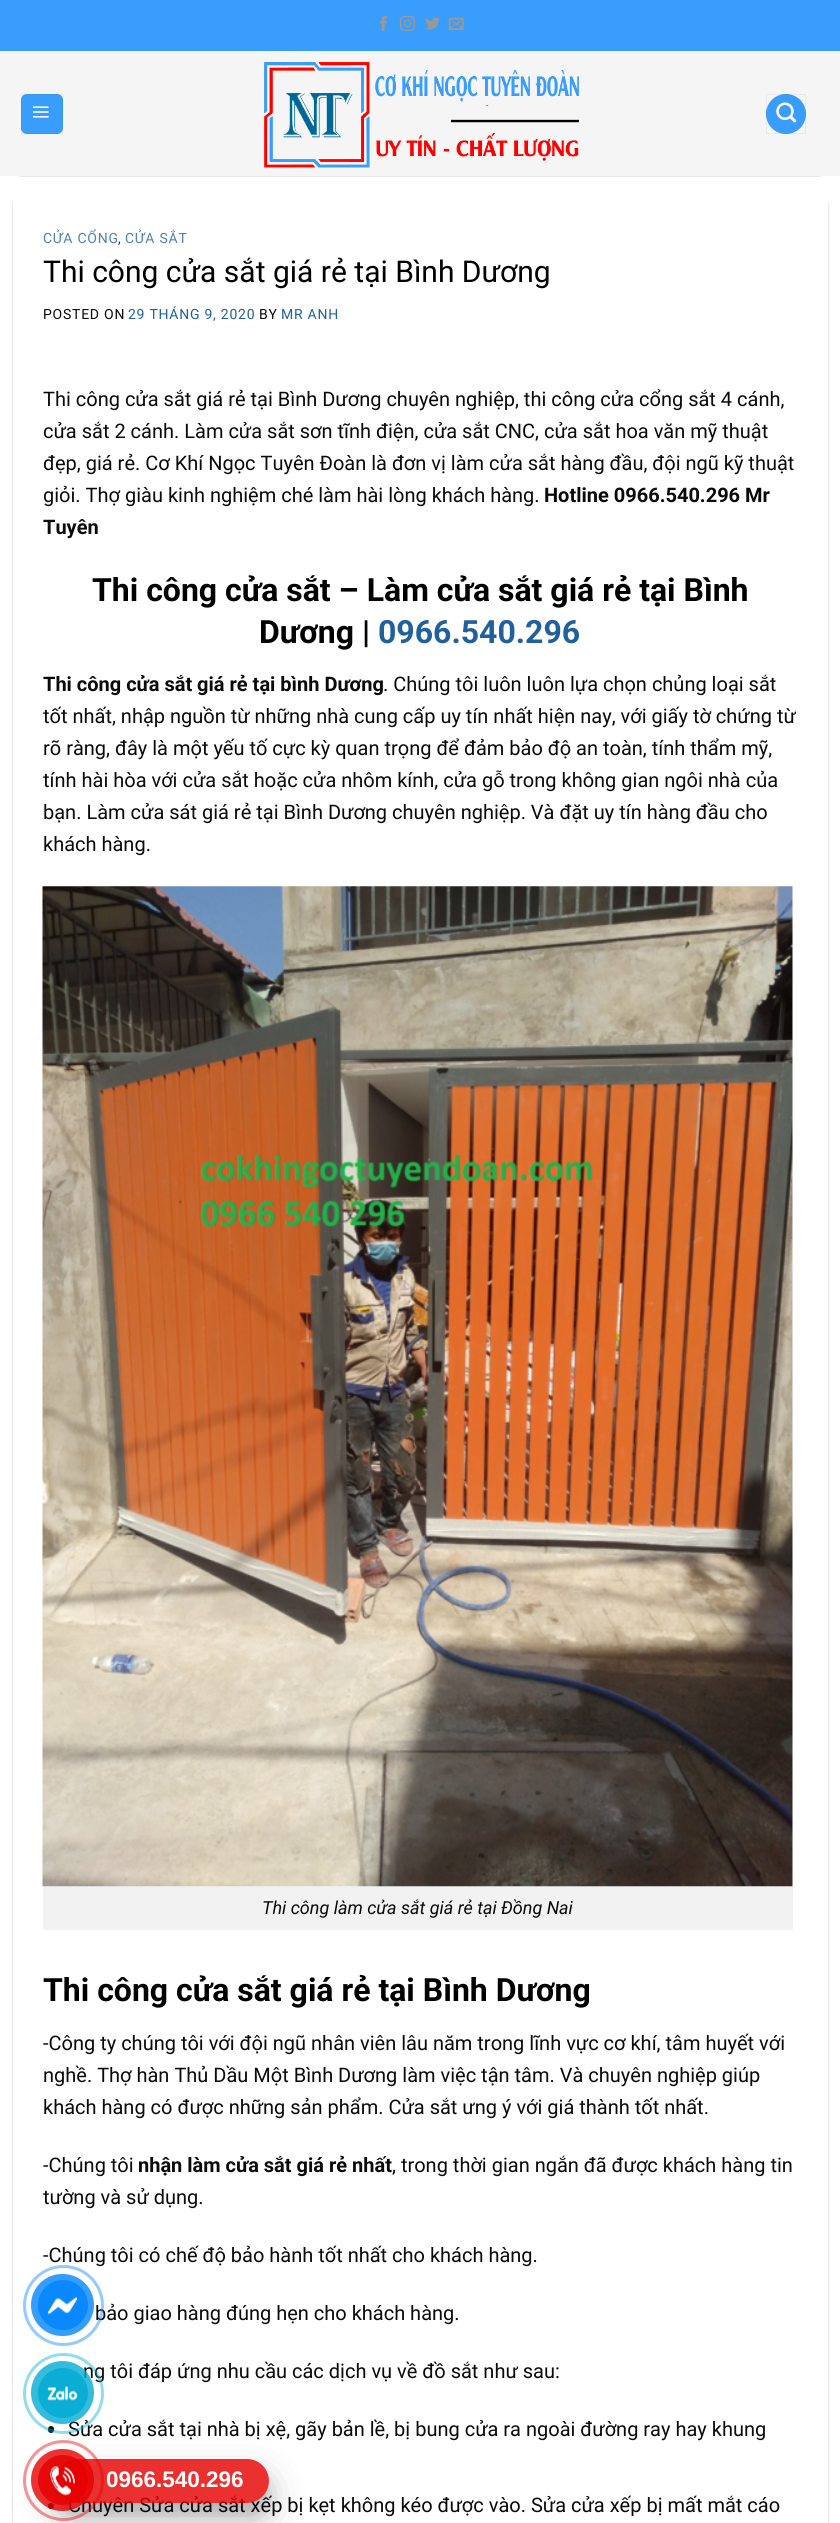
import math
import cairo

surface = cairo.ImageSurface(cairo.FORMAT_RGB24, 840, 2523)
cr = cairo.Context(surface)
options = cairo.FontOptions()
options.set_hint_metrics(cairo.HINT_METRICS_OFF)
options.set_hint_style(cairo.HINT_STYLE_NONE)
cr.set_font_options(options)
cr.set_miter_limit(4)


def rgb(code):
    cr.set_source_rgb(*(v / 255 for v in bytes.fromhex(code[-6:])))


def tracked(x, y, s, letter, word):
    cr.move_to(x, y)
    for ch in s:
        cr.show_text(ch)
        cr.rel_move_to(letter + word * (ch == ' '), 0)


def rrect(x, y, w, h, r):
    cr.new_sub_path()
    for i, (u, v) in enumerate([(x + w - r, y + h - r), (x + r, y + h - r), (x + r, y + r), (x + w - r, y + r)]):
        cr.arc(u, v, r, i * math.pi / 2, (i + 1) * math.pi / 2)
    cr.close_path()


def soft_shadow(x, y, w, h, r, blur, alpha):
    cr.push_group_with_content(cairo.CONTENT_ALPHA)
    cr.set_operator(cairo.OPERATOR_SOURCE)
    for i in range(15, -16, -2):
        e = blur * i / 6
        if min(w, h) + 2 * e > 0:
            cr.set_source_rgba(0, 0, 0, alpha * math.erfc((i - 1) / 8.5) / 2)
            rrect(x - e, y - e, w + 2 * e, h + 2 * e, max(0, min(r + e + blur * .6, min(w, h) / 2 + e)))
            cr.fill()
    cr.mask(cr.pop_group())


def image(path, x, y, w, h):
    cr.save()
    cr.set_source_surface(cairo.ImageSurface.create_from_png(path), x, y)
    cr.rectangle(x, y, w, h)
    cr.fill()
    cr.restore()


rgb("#ffffff")
cr.paint()
rgb("#399dfd")
cr.rectangle(0, 0, 840, 51)
cr.fill()
image("img/1.png", 380, 15, 7, 16)
image("img/2.png", 400, 15, 15, 16)
image("img/3.png", 425, 17, 15, 13)
image("img/4.png", 448, 17, 16, 13)
rgb("#f5f5f5")
cr.rectangle(0, 51, 840, 125)
cr.fill()
rgb("#399dfd")
rrect(21, 94, 42, 40, 6)
cr.fill()
cr.rectangle(21.5, 94.5, 41, 39)
cr.set_source_rgba(0, 0, 0, 0.05)
cr.set_line_width(1)
cr.stroke()
image("img/5.png", 32, 106, 17, 12)
image("img/6.png", 264, 62, 315, 106)
rgb("#399dfd")
cr.arc(786, 114, 20, 0, 2 * math.pi)
cr.fill()
cr.rectangle(766.5, 94.5, 39, 39)
cr.set_source_rgba(0, 0, 0, 0.05)
cr.stroke()
image("img/7.png", 776, 102, 21, 21)
rgb("#e7e7e7")
cr.rectangle(19, 176, 802, 1)
cr.fill()
rgb("#000000")
soft_shadow(13, 203, 815, 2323, 0, 1, 0.24)
rgb("#ffffff")
cr.rectangle(13, 201, 815, 2322)
cr.fill()
rgb("#f2f2f2")
cr.rectangle(43, 1886, 750, 44)
cr.fill()
image("img/8.png", 42, 886, 751, 1001)
rgb("#0a0a0a")
rrect(48, 2426, 6, 7, 3)
cr.fill()
cr.arc(51, 2506, 3, 0, 2 * math.pi)
cr.fill()
cr.save()
cr.set_fill_rule(cairo.FILL_RULE_EVEN_ODD)
cr.new_path()
cr.move_to(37, 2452)
cr.line_to(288, 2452)
cr.line_to(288, 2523)
cr.line_to(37, 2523)
cr.close_path()
cr.move_to(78, 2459)
cr.line_to(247, 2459)
cr.curve_to(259, 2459, 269, 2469, 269, 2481)
cr.curve_to(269, 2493, 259, 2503, 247, 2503)
cr.line_to(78, 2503)
cr.curve_to(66, 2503, 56, 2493, 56, 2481)
cr.curve_to(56, 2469, 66, 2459, 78, 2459)
cr.close_path()
cr.clip()
rgb("#000000")
soft_shadow(56, 2471, 213, 44, 22, 6, 0.1)
cr.restore()
cr.select_font_face("Roboto")
cr.set_font_size(14)
rgb("#4d80b0")
tracked(43, 243, "CỬA CỔNG", 0.75, 0)
rgb("#333333")
tracked(118, 243, ",", 0.75, 0)
rgb("#4d80b0")
tracked(125, 243, "CỬA SẮT", 0.75, 0)
cr.set_font_size(30)
rgb("#000000")
cr.move_to(43, 282)
cr.show_text("Thi công cửa sắt giá rẻ tại Bình Dương")
cr.set_font_size(14)
rgb("#0a0a0a")
tracked(43, 319, "POSTED ON", 0.75, 0)
rgb("#20609c")
tracked(128, 319, "29 THÁNG 9, 2020", 0.75, 0)
rgb("#0a0a0a")
tracked(259, 319, "BY", 0.75, 0)
rgb("#20609c")
tracked(281, 319, "MR ANH", 0.75, 0)
cr.set_font_size(20)
rgb("#0a0a0a")
for x, y, s in [
    (43, 406, "Thi công cửa sắt giá rẻ tại Bình Dương chuyên nghiệp, thi công cửa cổng sắt 4 cánh,"),
    (43, 438, "cửa sắt 2 cánh. Làm cửa sắt sơn tĩnh điện, cửa sắt CNC, cửa sắt hoa văn mỹ thuật"),
    (43, 470, "đẹp, giá rẻ. Cơ Khí Ngọc Tuyên Đoàn là đơn vị làm cửa sắt hàng đầu, đội ngũ kỹ thuật"),
    (43, 502, "giỏi. Thợ giàu kinh nghiệm ché làm hài lòng khách hàng."),
]:
    cr.move_to(x, y)
    cr.show_text(s)
cr.select_font_face("Roboto", cairo.FONT_SLANT_NORMAL, cairo.FONT_WEIGHT_BOLD)
cr.move_to(544, 502)
cr.show_text("Hotline 0966.540.296 Mr")
cr.move_to(43, 534)
cr.show_text("Tuyên")
cr.set_font_size(32)
rgb("#000000")
cr.move_to(92, 601)
cr.show_text("Thi công cửa sắt – Làm cửa sắt giá rẻ tại Bình")
cr.move_to(259, 643)
cr.show_text("Dương |")
rgb("#20609c")
cr.move_to(378, 643)
cr.show_text("0966.540.296")
cr.set_font_size(20)
rgb("#0a0a0a")
cr.move_to(43, 691)
cr.show_text("Thi công cửa sắt giá rẻ tại bình Dương")
cr.select_font_face("Roboto")
for x, y, s in [
    (383, 691, ". Chúng tôi luôn luôn lựa chọn chủng loại sắt"),
    (43, 723, "tốt nhất, nhập nguồn từ những nhà cung cấp uy tín nhất hiện nay, với giấy tờ chứng từ"),
    (43, 755, "rõ ràng, đây là một yếu tố cực kỳ quan trọng để đảm bảo độ an toàn, tính thẩm mỹ,"),
    (43, 787, "tính hài hòa với cửa sắt hoặc cửa nhôm kính, cửa gỗ trong không gian ngôi nhà của"),
    (43, 819, "bạn. Làm cửa sát giá rẻ tại Bình Dương chuyên nghiệp. Và đặt uy tín hàng đầu cho"),
    (43, 851, "khách hàng."),
]:
    cr.move_to(x, y)
    cr.show_text(s)
cr.select_font_face("Roboto", cairo.FONT_SLANT_ITALIC)
cr.set_font_size(18)
cr.move_to(262, 1914)
cr.show_text("Thi công làm cửa sắt giá rẻ tại Đồng Nai")
cr.select_font_face("Roboto", cairo.FONT_SLANT_NORMAL, cairo.FONT_WEIGHT_BOLD)
cr.set_font_size(32)
rgb("#000000")
cr.move_to(43, 2001)
cr.show_text("Thi công cửa sắt giá rẻ tại Bình Dương")
cr.select_font_face("Roboto")
cr.set_font_size(20)
rgb("#0a0a0a")
for x, y, s in [
    (43, 2050, "-Công ty chúng tôi với đội ngũ nhân viên lâu năm trong lĩnh vực cơ khí, tâm huyết với"),
    (43, 2082, "nghề. Thợ hàn Thủ Dầu Một Bình Dương làm việc tận tâm. Và chuyên nghiệp giúp"),
    (43, 2114, "khách hàng có được những sản phẩm. Cửa sắt ưng ý với giá thành tốt nhất."),
    (43, 2172, "-Chúng tôi"),
]:
    cr.move_to(x, y)
    cr.show_text(s)
cr.select_font_face("Roboto", cairo.FONT_SLANT_NORMAL, cairo.FONT_WEIGHT_BOLD)
cr.move_to(138, 2172)
cr.show_text("nhận làm cửa sắt giá rẻ nhất")
cr.select_font_face("Roboto")
for x, y, s in [
    (392, 2172, ", trong thời gian ngắn đã được khách hàng tin"),
    (43, 2204, "tường và sử dụng."),
    (43, 2262, "-Chúng tôi có chế độ bảo hành tốt nhất cho khách hàng."),
    (95, 2320, "bảo giao hàng đúng hẹn cho khách hàng."),
    (83, 2378, "ng tôi đáp ứng nhu cầu các dịch vụ về đồ sắt như sau:"),
    (68, 2436, "Sửa cửa sắt tại nhà bị xệ, gãy bản lề, bị bung cửa ra ngoài đường ray hay khung"),
    (68, 2512, "Chuyên Sửa cửa sắt xếp bị kẹt không kéo được vào. Sửa cửa xếp bị mất mắt cáo"),
]:
    cr.move_to(x, y)
    cr.show_text(s)
cr.new_path()
cr.arc(63.5, 2305.5, 39, 0, 2 * math.pi)
cr.set_source_rgba(0, 0.518, 1, 0.42)
cr.set_line_width(3)
cr.stroke()
cr.set_source_rgba(0, 0.518, 1, 0.79)
rrect(31, 2274, 63, 62, 31)
cr.fill()
cr.set_source_rgba(0, 0.518, 1, 0.81)
cr.arc(63, 2305, 25, 0, 2 * math.pi)
cr.fill()
image("img/9.png", 47, 2297, 31, 18)
cr.arc(63.5, 2393.5, 39, 0, 2 * math.pi)
cr.set_source_rgba(0, 0.671, 0.827, 0.42)
cr.stroke()
cr.set_source_rgba(0, 0.671, 0.827, 0.79)
cr.arc(62.5, 2392.5, 31.5, 0, 2 * math.pi)
cr.fill()
cr.set_source_rgba(0, 0.671, 0.827, 0.81)
cr.arc(63, 2393, 25, 0, 2 * math.pi)
cr.fill()
image("img/10.png", 47, 2386, 31, 15)
cr.save()
cr.set_fill_rule(cairo.FILL_RULE_EVEN_ODD)
cr.new_path()
cr.move_to(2, 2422)
cr.line_to(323, 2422)
cr.line_to(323, 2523)
cr.line_to(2, 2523)
cr.close_path()
cr.move_to(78, 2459)
cr.line_to(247, 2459)
cr.curve_to(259, 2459, 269, 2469, 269, 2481)
cr.curve_to(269, 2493, 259, 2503, 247, 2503)
cr.line_to(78, 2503)
cr.curve_to(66, 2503, 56, 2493, 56, 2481)
cr.curve_to(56, 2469, 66, 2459, 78, 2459)
cr.close_path()
cr.clip()
rgb("#000000")
soft_shadow(56, 2476, 213, 44, 22, 17.5, 0.25)
cr.restore()
cr.set_source_rgba(0.902, 0, 0, 0.81)
rrect(56, 2459, 213, 44, 22)
cr.fill()
cr.arc(63.5, 2480.5, 39, 0, 2 * math.pi)
cr.set_source_rgba(0.902, 0, 0, 0.42)
cr.stroke()
cr.set_source_rgba(0.902, 0, 0, 0.79)
rrect(31, 2449, 63, 62, 31)
cr.fill()
cr.set_source_rgba(0.902, 0, 0, 0.81)
cr.arc(63, 2480, 25, 0, 2 * math.pi)
cr.fill()
image("img/11.png", 50, 2466, 25, 30)
cr.select_font_face("Liberation Sans", cairo.FONT_SLANT_NORMAL, cairo.FONT_WEIGHT_BOLD)
cr.set_font_size(22.5)
rgb("#ffffff")
cr.move_to(106, 2487)
cr.show_text("0966.540.296")
surface.write_to_png("page.png")
